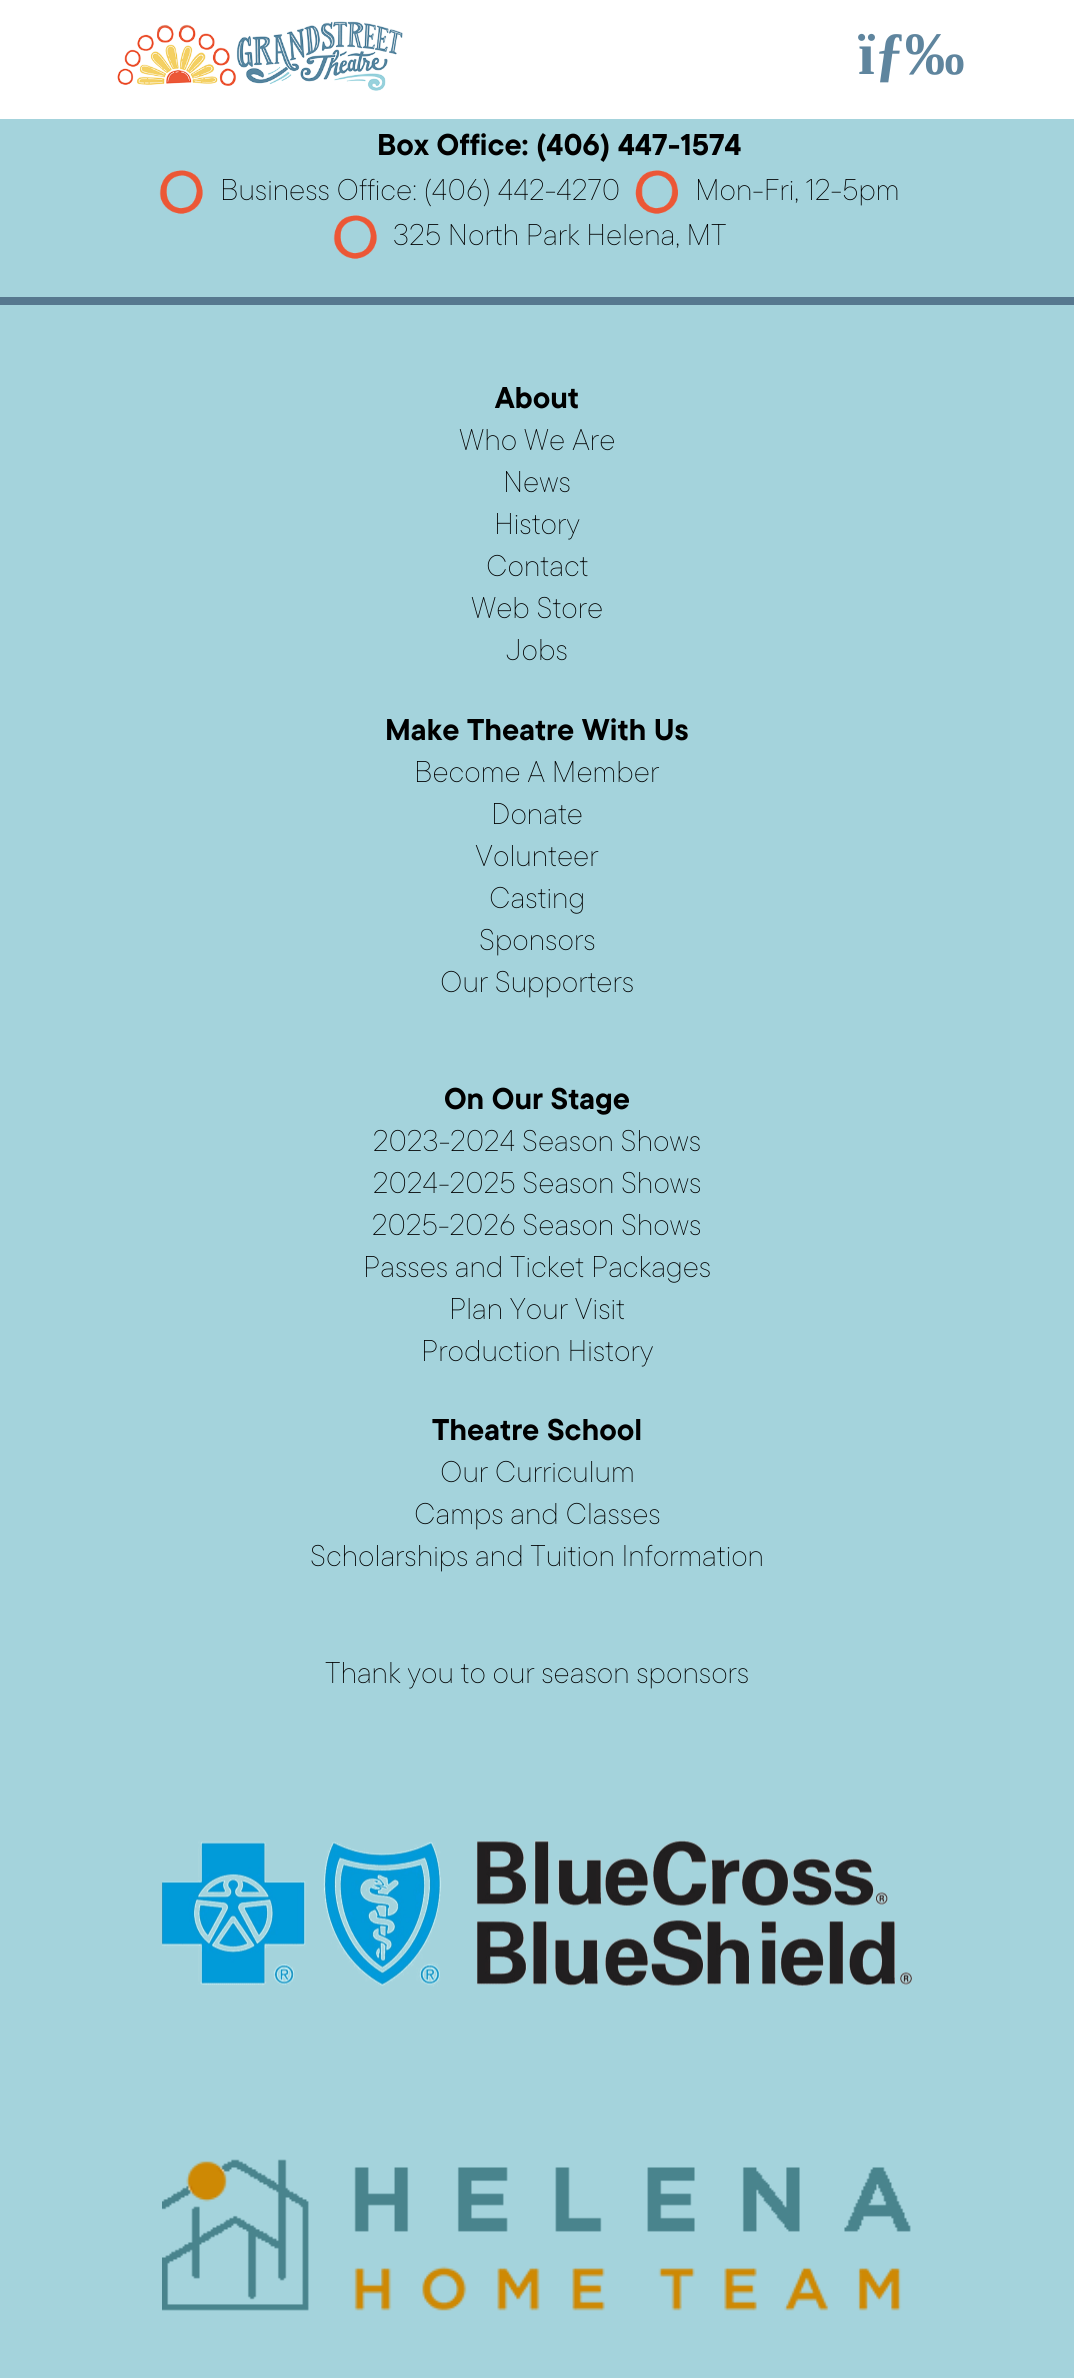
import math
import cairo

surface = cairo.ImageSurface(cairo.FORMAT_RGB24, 1074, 2378)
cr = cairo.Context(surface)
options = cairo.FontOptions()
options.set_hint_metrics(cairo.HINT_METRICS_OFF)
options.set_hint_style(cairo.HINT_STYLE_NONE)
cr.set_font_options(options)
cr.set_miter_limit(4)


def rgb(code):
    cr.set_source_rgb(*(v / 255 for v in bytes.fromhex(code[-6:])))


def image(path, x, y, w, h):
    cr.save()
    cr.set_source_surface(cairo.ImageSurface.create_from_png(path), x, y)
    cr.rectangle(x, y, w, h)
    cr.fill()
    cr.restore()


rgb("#a4d3dc")
cr.paint()
rgb("#ffffff")
cr.rectangle(0, 0, 1074, 119)
cr.fill()
image("img/1.png", 117, 21, 286, 70)
rgb("#56788f")
cr.rectangle(0, 297, 1074, 8)
cr.fill()
image("img/2.png", 159, 170, 44, 44)
image("img/3.png", 635, 170, 44, 44)
image("img/4.png", 333, 215, 44, 44)
image("img/5.png", 162, 1840, 750, 147)
image("img/6.png", 162, 2159, 749, 152)
cr.select_font_face("Liberation Serif", cairo.FONT_SLANT_NORMAL, cairo.FONT_WEIGHT_BOLD)
cr.set_font_size(60)
rgb("#5f859e")
cr.move_to(858, 74)
cr.show_text("ïƒ‰")
cr.select_font_face("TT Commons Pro", cairo.FONT_SLANT_NORMAL, cairo.FONT_WEIGHT_BOLD)
cr.set_font_size(30)
rgb("#000000")
cr.move_to(377, 155)
cr.show_text("Box Office: (406) 447-1574")
cr.select_font_face("TT Commons Pro Thin")
for x, y, s in [
    (220, 200, "Business Office: (406) 442-4270"),
    (695, 200, "Mon-Fri, 12-5pm"),
    (393, 245, "325 North Park Helena, MT"),
]:
    cr.move_to(x, y)
    cr.show_text(s)
cr.select_font_face("TT Commons Pro", cairo.FONT_SLANT_NORMAL, cairo.FONT_WEIGHT_BOLD)
cr.move_to(495, 408)
cr.show_text("About")
cr.select_font_face("TT Commons Pro Thin")
for x, y, s in [
    (459, 450, "Who We Are"),
    (503, 492, "News"),
    (494, 534, "History"),
    (486, 576, "Contact"),
    (471, 618, "Web Store"),
    (506, 660, "Jobs"),
]:
    cr.move_to(x, y)
    cr.show_text(s)
cr.select_font_face("TT Commons Pro", cairo.FONT_SLANT_NORMAL, cairo.FONT_WEIGHT_BOLD)
cr.move_to(385, 740)
cr.show_text("Make Theatre With Us")
cr.select_font_face("TT Commons Pro Thin")
for x, y, s in [
    (414, 782, "Become A Member"),
    (491, 824, "Donate"),
    (475, 866, "Volunteer"),
    (489, 908, "Casting"),
    (479, 950, "Sponsors"),
    (440, 992, "Our Supporters"),
]:
    cr.move_to(x, y)
    cr.show_text(s)
cr.select_font_face("TT Commons Pro", cairo.FONT_SLANT_NORMAL, cairo.FONT_WEIGHT_BOLD)
cr.move_to(444, 1109)
cr.show_text("On Our Stage")
cr.select_font_face("TT Commons Pro Thin")
for x, y, s in [
    (373, 1151, "2023-2024 Season Shows"),
    (373, 1193, "2024-2025 Season Shows"),
    (372, 1235, "2025-2026 Season Shows"),
    (363, 1277, "Passes and Ticket Packages"),
    (449, 1319, "Plan Your Visit"),
    (421, 1361, "Production History"),
]:
    cr.move_to(x, y)
    cr.show_text(s)
cr.select_font_face("TT Commons Pro", cairo.FONT_SLANT_NORMAL, cairo.FONT_WEIGHT_BOLD)
cr.move_to(432, 1440)
cr.show_text("Theatre School")
cr.select_font_face("TT Commons Pro Thin")
for x, y, s in [
    (440, 1482, "Our Curriculum"),
    (414, 1524, "Camps and Classes"),
    (310, 1566, "Scholarships and Tuition Information"),
    (325, 1683, "Thank you to our season sponsors"),
]:
    cr.move_to(x, y)
    cr.show_text(s)
surface.write_to_png("page.png")
